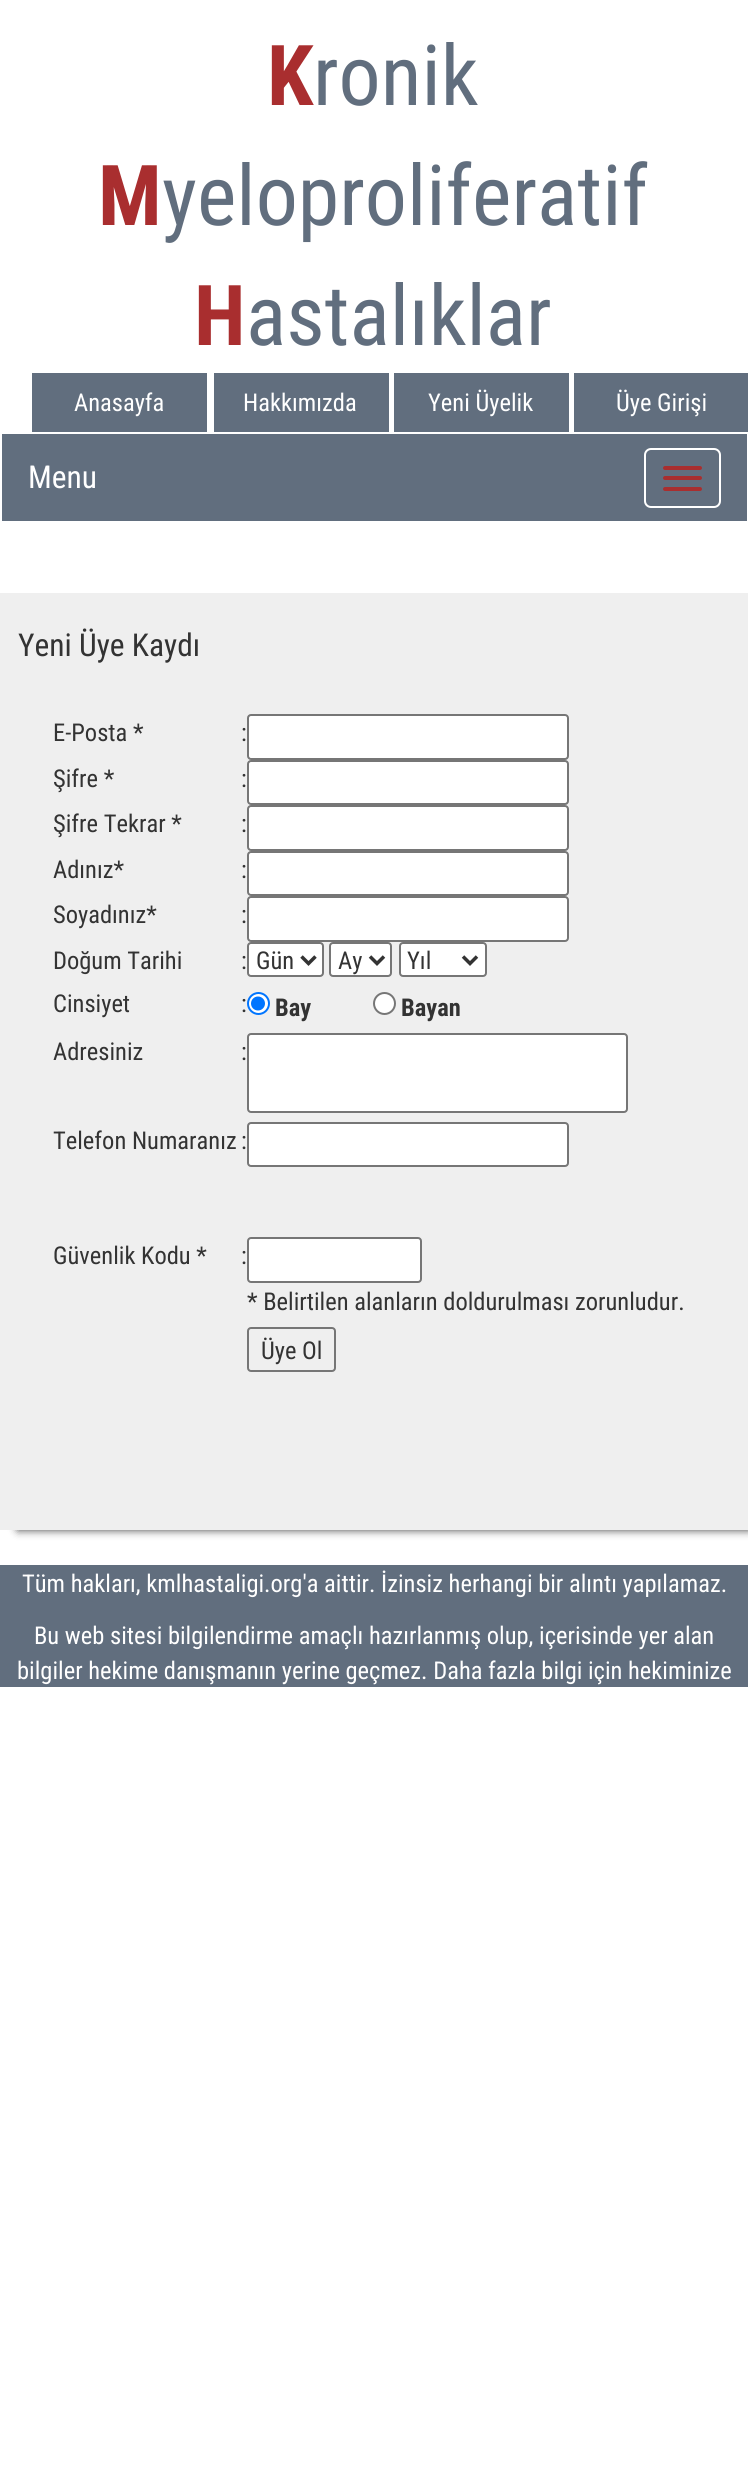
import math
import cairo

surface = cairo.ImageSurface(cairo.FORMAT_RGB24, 748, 2487)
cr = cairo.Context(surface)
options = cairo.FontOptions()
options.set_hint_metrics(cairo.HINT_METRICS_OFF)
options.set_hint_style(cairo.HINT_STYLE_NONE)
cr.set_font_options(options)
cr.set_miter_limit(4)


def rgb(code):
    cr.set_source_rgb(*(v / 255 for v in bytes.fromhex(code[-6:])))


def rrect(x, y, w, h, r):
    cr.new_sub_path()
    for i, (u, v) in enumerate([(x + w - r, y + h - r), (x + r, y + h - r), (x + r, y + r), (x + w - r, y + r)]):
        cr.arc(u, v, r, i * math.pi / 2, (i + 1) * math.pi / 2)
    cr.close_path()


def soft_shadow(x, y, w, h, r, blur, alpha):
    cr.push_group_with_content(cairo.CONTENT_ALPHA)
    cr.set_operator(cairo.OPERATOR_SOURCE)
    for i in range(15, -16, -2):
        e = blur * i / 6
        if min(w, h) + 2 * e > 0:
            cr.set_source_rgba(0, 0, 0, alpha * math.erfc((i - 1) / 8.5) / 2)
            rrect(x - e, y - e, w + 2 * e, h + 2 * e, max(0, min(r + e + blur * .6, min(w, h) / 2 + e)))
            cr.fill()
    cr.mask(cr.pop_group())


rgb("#ffffff")
cr.paint()
for x, y, w, h, color in [
    (32, 373, 175, 59, "#616e7e"),
    (214, 373, 175, 59, "#616e7e"),
    (394, 373, 175, 59, "#616e7e"),
    (574, 373, 174, 59, "#616e7e"),
    (2, 434, 745, 87, "#616e7e"),
]:
    rgb(color)
    cr.rectangle(x, y, w, h)
    cr.fill()
rrect(645, 449, 75, 58, 6)
rgb("#ffffff")
cr.stroke()
rgb("#a92e2f")
rrect(663, 466, 39, 4, 2)
cr.fill()
rrect(663, 476, 39, 4, 2)
cr.fill()
rrect(663, 487, 39, 4, 2)
cr.fill()
rgb("#000000")
soft_shadow(18, 611, 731, 919, 0, 4.5, 0.75)
rgb("#efefef")
cr.rectangle(0, 593, 748, 937)
cr.fill()
rgb("#ffffff")
rrect(248, 715, 320, 44, 3)
cr.fill_preserve()
rgb("#767676")
cr.stroke()
rgb("#ffffff")
rrect(248, 761, 320, 43, 3)
cr.fill_preserve()
rgb("#767676")
cr.stroke()
rgb("#ffffff")
rrect(248, 806, 320, 44, 3)
cr.fill_preserve()
rgb("#767676")
cr.stroke()
rgb("#ffffff")
rrect(248, 852, 320, 43, 3)
cr.fill_preserve()
rgb("#767676")
cr.stroke()
rgb("#ffffff")
rrect(248, 897, 320, 44, 3)
cr.fill_preserve()
rgb("#767676")
cr.stroke()
rgb("#ffffff")
rrect(248, 943, 75, 33, 3)
cr.fill_preserve()
rgb("#767676")
cr.stroke()
cr.new_path()
cr.move_to(301.5, 956.5)
cr.line_to(308.5, 963.5)
cr.line_to(315.5, 956.5)
rgb("#333333")
cr.set_line_width(3.5)
cr.stroke()
rgb("#ffffff")
rrect(330, 943, 61, 33, 3)
cr.fill_preserve()
rgb("#767676")
cr.set_line_width(2)
cr.stroke()
cr.new_path()
cr.move_to(370, 956.5)
cr.line_to(377, 963.5)
cr.line_to(384, 956.5)
rgb("#333333")
cr.set_line_width(3.5)
cr.stroke()
rgb("#ffffff")
rrect(400, 943, 86, 33, 3)
cr.fill_preserve()
rgb("#767676")
cr.set_line_width(2)
cr.stroke()
cr.new_path()
cr.move_to(463, 956.5)
cr.line_to(470, 963.5)
cr.line_to(477, 956.5)
rgb("#333333")
cr.set_line_width(3.5)
cr.stroke()
rgb("#ffffff")
cr.arc(258.5, 1003.5, 10.5, 0, 2 * math.pi)
cr.fill_preserve()
rgb("#0075ff")
cr.set_line_width(2)
cr.stroke()
cr.arc(258, 1003.5, 7, 0, 2 * math.pi)
cr.fill()
rgb("#ffffff")
cr.arc(384.5, 1003.5, 10.5, 0, 2 * math.pi)
cr.fill_preserve()
rgb("#767676")
cr.stroke()
rgb("#ffffff")
rrect(248, 1034, 379, 78, 3)
cr.fill_preserve()
rgb("#767676")
cr.stroke()
rgb("#ffffff")
rrect(248, 1123, 320, 43, 3)
cr.fill_preserve()
rgb("#767676")
cr.stroke()
rgb("#ffffff")
rrect(248, 1238, 173, 44, 3)
cr.fill_preserve()
rgb("#767676")
cr.stroke()
rrect(248, 1328, 87, 43, 3)
cr.stroke()
rgb("#616e7e")
cr.rectangle(0, 1565, 748, 122)
cr.fill()
cr.select_font_face("Roboto Condensed", cairo.FONT_SLANT_NORMAL, cairo.FONT_WEIGHT_BOLD)
cr.set_font_size(84)
rgb("#a92e2f")
cr.move_to(267, 105)
cr.show_text("K")
cr.select_font_face("Roboto Condensed")
rgb("#616e7e")
cr.move_to(313, 105)
cr.show_text("ronik")
cr.select_font_face("Roboto Condensed", cairo.FONT_SLANT_NORMAL, cairo.FONT_WEIGHT_BOLD)
rgb("#a92e2f")
cr.move_to(98, 225)
cr.show_text("M")
cr.select_font_face("Roboto Condensed")
rgb("#616e7e")
cr.move_to(162, 225)
cr.show_text("yeloproliferatif")
cr.select_font_face("Roboto Condensed", cairo.FONT_SLANT_NORMAL, cairo.FONT_WEIGHT_BOLD)
rgb("#a92e2f")
cr.move_to(194, 345)
cr.show_text("H")
cr.select_font_face("Roboto Condensed")
rgb("#616e7e")
cr.move_to(246, 345)
cr.show_text("astalıklar")
cr.set_font_size(24.5)
rgb("#ffffff")
for x, y, s in [
    (74, 411, "Anasayfa"),
    (243, 411, "Hakkımızda"),
    (428, 411, "Yeni Üyelik"),
    (616, 411, "Üye Girişi"),
]:
    cr.move_to(x, y)
    cr.show_text(s)
cr.set_font_size(31.5)
cr.move_to(28, 488)
cr.show_text("Menu")
rgb("#333333")
cr.move_to(18, 656)
cr.show_text("Yeni Üye Kaydı")
cr.set_font_size(24.5)
for x, y, s in [
    (53, 741, "E-Posta *"),
    (241, 741, ":"),
    (53, 787, "Şifre *"),
    (241, 787, ":"),
    (53, 832, "Şifre Tekrar *"),
    (241, 832, ":"),
    (53, 878, "Adınız*"),
    (241, 878, ":"),
    (53, 923, "Soyadınız*"),
    (241, 923, ":"),
    (53, 969, "Doğum Tarihi"),
    (241, 969, ":"),
    (256, 969, "Gün"),
    (338, 969, "Ay"),
    (407, 969, "Yıl"),
    (53, 1012, "Cinsiyet"),
    (241, 1012, ":"),
]:
    cr.move_to(x, y)
    cr.show_text(s)
cr.select_font_face("Roboto Condensed", cairo.FONT_SLANT_NORMAL, cairo.FONT_WEIGHT_BOLD)
cr.move_to(275, 1016)
cr.show_text("Bay")
cr.move_to(401, 1016)
cr.show_text("Bayan")
cr.select_font_face("Roboto Condensed")
for x, y, s in [
    (53, 1060, "Adresiniz"),
    (241, 1060, ":"),
    (53, 1149, "Telefon Numaranız"),
    (241, 1149, ":"),
    (53, 1264, "Güvenlik Kodu *"),
    (241, 1264, ":"),
    (247, 1310, "* Belirtilen alanların doldurulması zorunludur."),
    (261, 1359, "Üye Ol"),
]:
    cr.move_to(x, y)
    cr.show_text(s)
rgb("#ffffff")
for x, y, s in [
    (22, 1592, "Tüm hakları, kmlhastaligi.org'a aittir. İzinsiz herhangi bir alıntı yapılamaz."),
    (34, 1644, "Bu web sitesi bilgilendirme amaçlı hazırlanmış olup, içerisinde yer alan"),
    (17, 1679, "bilgiler hekime danışmanın yerine geçmez. Daha fazla bilgi için hekiminize"),
]:
    cr.move_to(x, y)
    cr.show_text(s)
surface.write_to_png("page.png")
